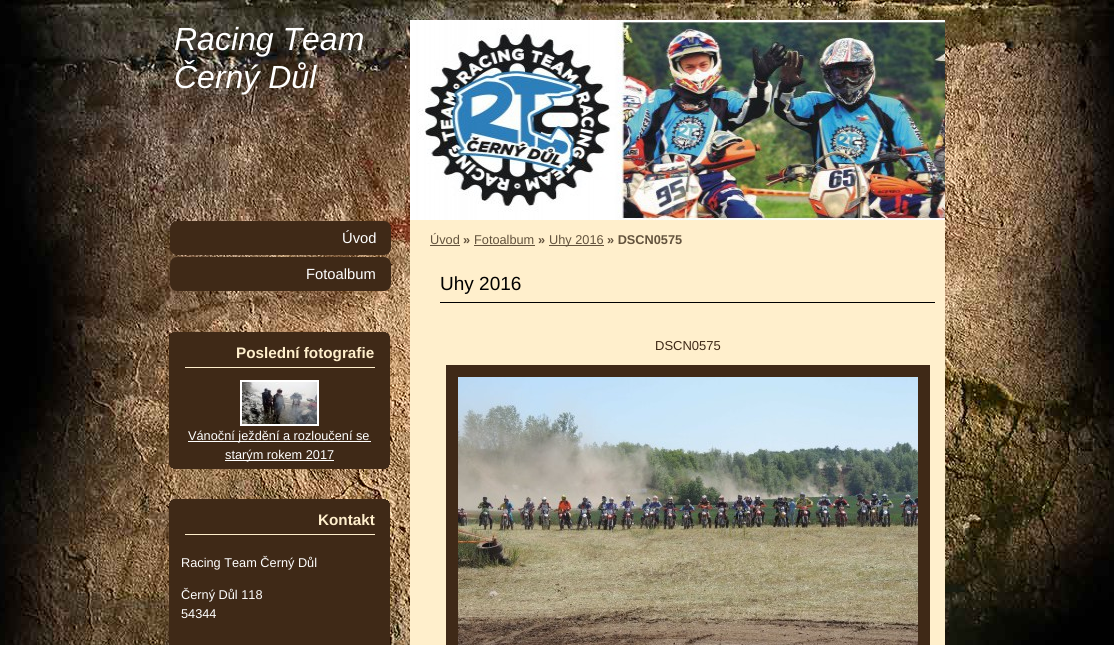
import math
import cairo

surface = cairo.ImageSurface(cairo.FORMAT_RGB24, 1114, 645)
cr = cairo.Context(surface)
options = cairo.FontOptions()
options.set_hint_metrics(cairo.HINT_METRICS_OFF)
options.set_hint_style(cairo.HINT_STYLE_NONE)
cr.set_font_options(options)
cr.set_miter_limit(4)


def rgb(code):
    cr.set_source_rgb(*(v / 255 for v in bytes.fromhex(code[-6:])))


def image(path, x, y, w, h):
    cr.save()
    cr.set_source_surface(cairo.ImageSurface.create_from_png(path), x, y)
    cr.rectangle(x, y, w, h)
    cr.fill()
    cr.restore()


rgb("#ffffff")
cr.paint()
image("img/1.png", 0, 0, 1114, 645)
rgb("#ffefcc")
cr.rectangle(410, 220, 535, 425)
cr.fill()
image("img/2.png", 410, 20, 535, 200)
image("img/3.png", 170, 221, 221, 34)
image("img/4.png", 170, 257, 221, 34)
image("img/5.png", 169, 464, 221, 5)
rgb("#3f2917")
cr.rectangle(169, 337, 221, 127)
cr.fill()
rgb("#ffefcc")
cr.rectangle(185, 367, 190, 1)
cr.fill()
image("img/6.png", 169, 332, 221, 5)
cr.rectangle(241, 381, 77, 44)
rgb("#ffffff")
cr.stroke()
image("img/7.png", 242, 382, 75, 42)
for x, y, w, h, color in [
    (188, 441, 183, 1, "#ffffff"),
    (225, 460, 109, 1, "#ffffff"),
    (169, 504, 221, 141, "#3f2917"),
    (185, 534, 190, 1, "#ffefcc"),
]:
    rgb(color)
    cr.rectangle(x, y, w, h)
    cr.fill()
image("img/8.png", 169, 499, 221, 5)
for x, y, w, h, color in [
    (430, 245, 30, 1, "#63533d"),
    (474, 245, 61, 1, "#63533d"),
    (549, 245, 55, 1, "#63533d"),
    (440, 302, 495, 1, "#000000"),
]:
    rgb(color)
    cr.rectangle(x, y, w, h)
    cr.fill()
cr.rectangle(452, 371, 472, 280)
rgb("#3f2917")
cr.set_line_width(12)
cr.stroke()
image("img/9.png", 458, 377, 460, 268)
cr.select_font_face("Liberation Sans", cairo.FONT_SLANT_ITALIC)
cr.set_font_size(32)
rgb("#ffffff")
cr.move_to(174, 50)
cr.show_text("Racing Team")
cr.move_to(174, 88)
cr.show_text("Černý Důl")
cr.select_font_face("Liberation Sans")
cr.set_font_size(14.75)
cr.move_to(342, 243)
cr.show_text("Úvod")
cr.move_to(306, 279)
cr.show_text("Fotoalbum")
cr.select_font_face("Liberation Sans", cairo.FONT_SLANT_NORMAL, cairo.FONT_WEIGHT_BOLD)
cr.set_font_size(15.25)
rgb("#ffefcc")
cr.move_to(236, 358)
cr.show_text("Poslední fotografie")
cr.select_font_face("Liberation Sans")
cr.set_font_size(12.75)
rgb("#ffffff")
cr.move_to(188, 440)
cr.show_text("Vánoční ježdění a rozloučení se")
cr.move_to(225, 459)
cr.show_text("starým rokem 2017")
cr.select_font_face("Liberation Sans", cairo.FONT_SLANT_NORMAL, cairo.FONT_WEIGHT_BOLD)
cr.set_font_size(15.25)
rgb("#ffefcc")
cr.move_to(318, 525)
cr.show_text("Kontakt")
cr.select_font_face("Liberation Sans")
cr.set_font_size(12.75)
rgb("#ffffff")
for x, y, s in [
    (181, 567, "Racing Team Černý Důl"),
    (181, 599, "Černý Důl 118"),
    (181, 618, "54344"),
]:
    cr.move_to(x, y)
    cr.show_text(s)
rgb("#63533d")
cr.move_to(430, 244)
cr.show_text("Úvod")
cr.select_font_face("Liberation Sans", cairo.FONT_SLANT_NORMAL, cairo.FONT_WEIGHT_BOLD)
cr.move_to(463, 244)
cr.show_text("»")
cr.select_font_face("Liberation Sans")
cr.move_to(474, 244)
cr.show_text("Fotoalbum")
cr.select_font_face("Liberation Sans", cairo.FONT_SLANT_NORMAL, cairo.FONT_WEIGHT_BOLD)
cr.move_to(538, 244)
cr.show_text("»")
cr.select_font_face("Liberation Sans")
cr.move_to(549, 244)
cr.show_text("Uhy 2016")
cr.select_font_face("Liberation Sans", cairo.FONT_SLANT_NORMAL, cairo.FONT_WEIGHT_BOLD)
cr.move_to(607, 244)
cr.show_text("» DSCN0575")
cr.select_font_face("Liberation Sans")
cr.set_font_size(19)
rgb("#000000")
cr.move_to(440, 290)
cr.show_text("Uhy 2016")
cr.set_font_size(13)
rgb("#3f2917")
cr.move_to(655, 350)
cr.show_text("DSCN0575")
surface.write_to_png("page.png")
